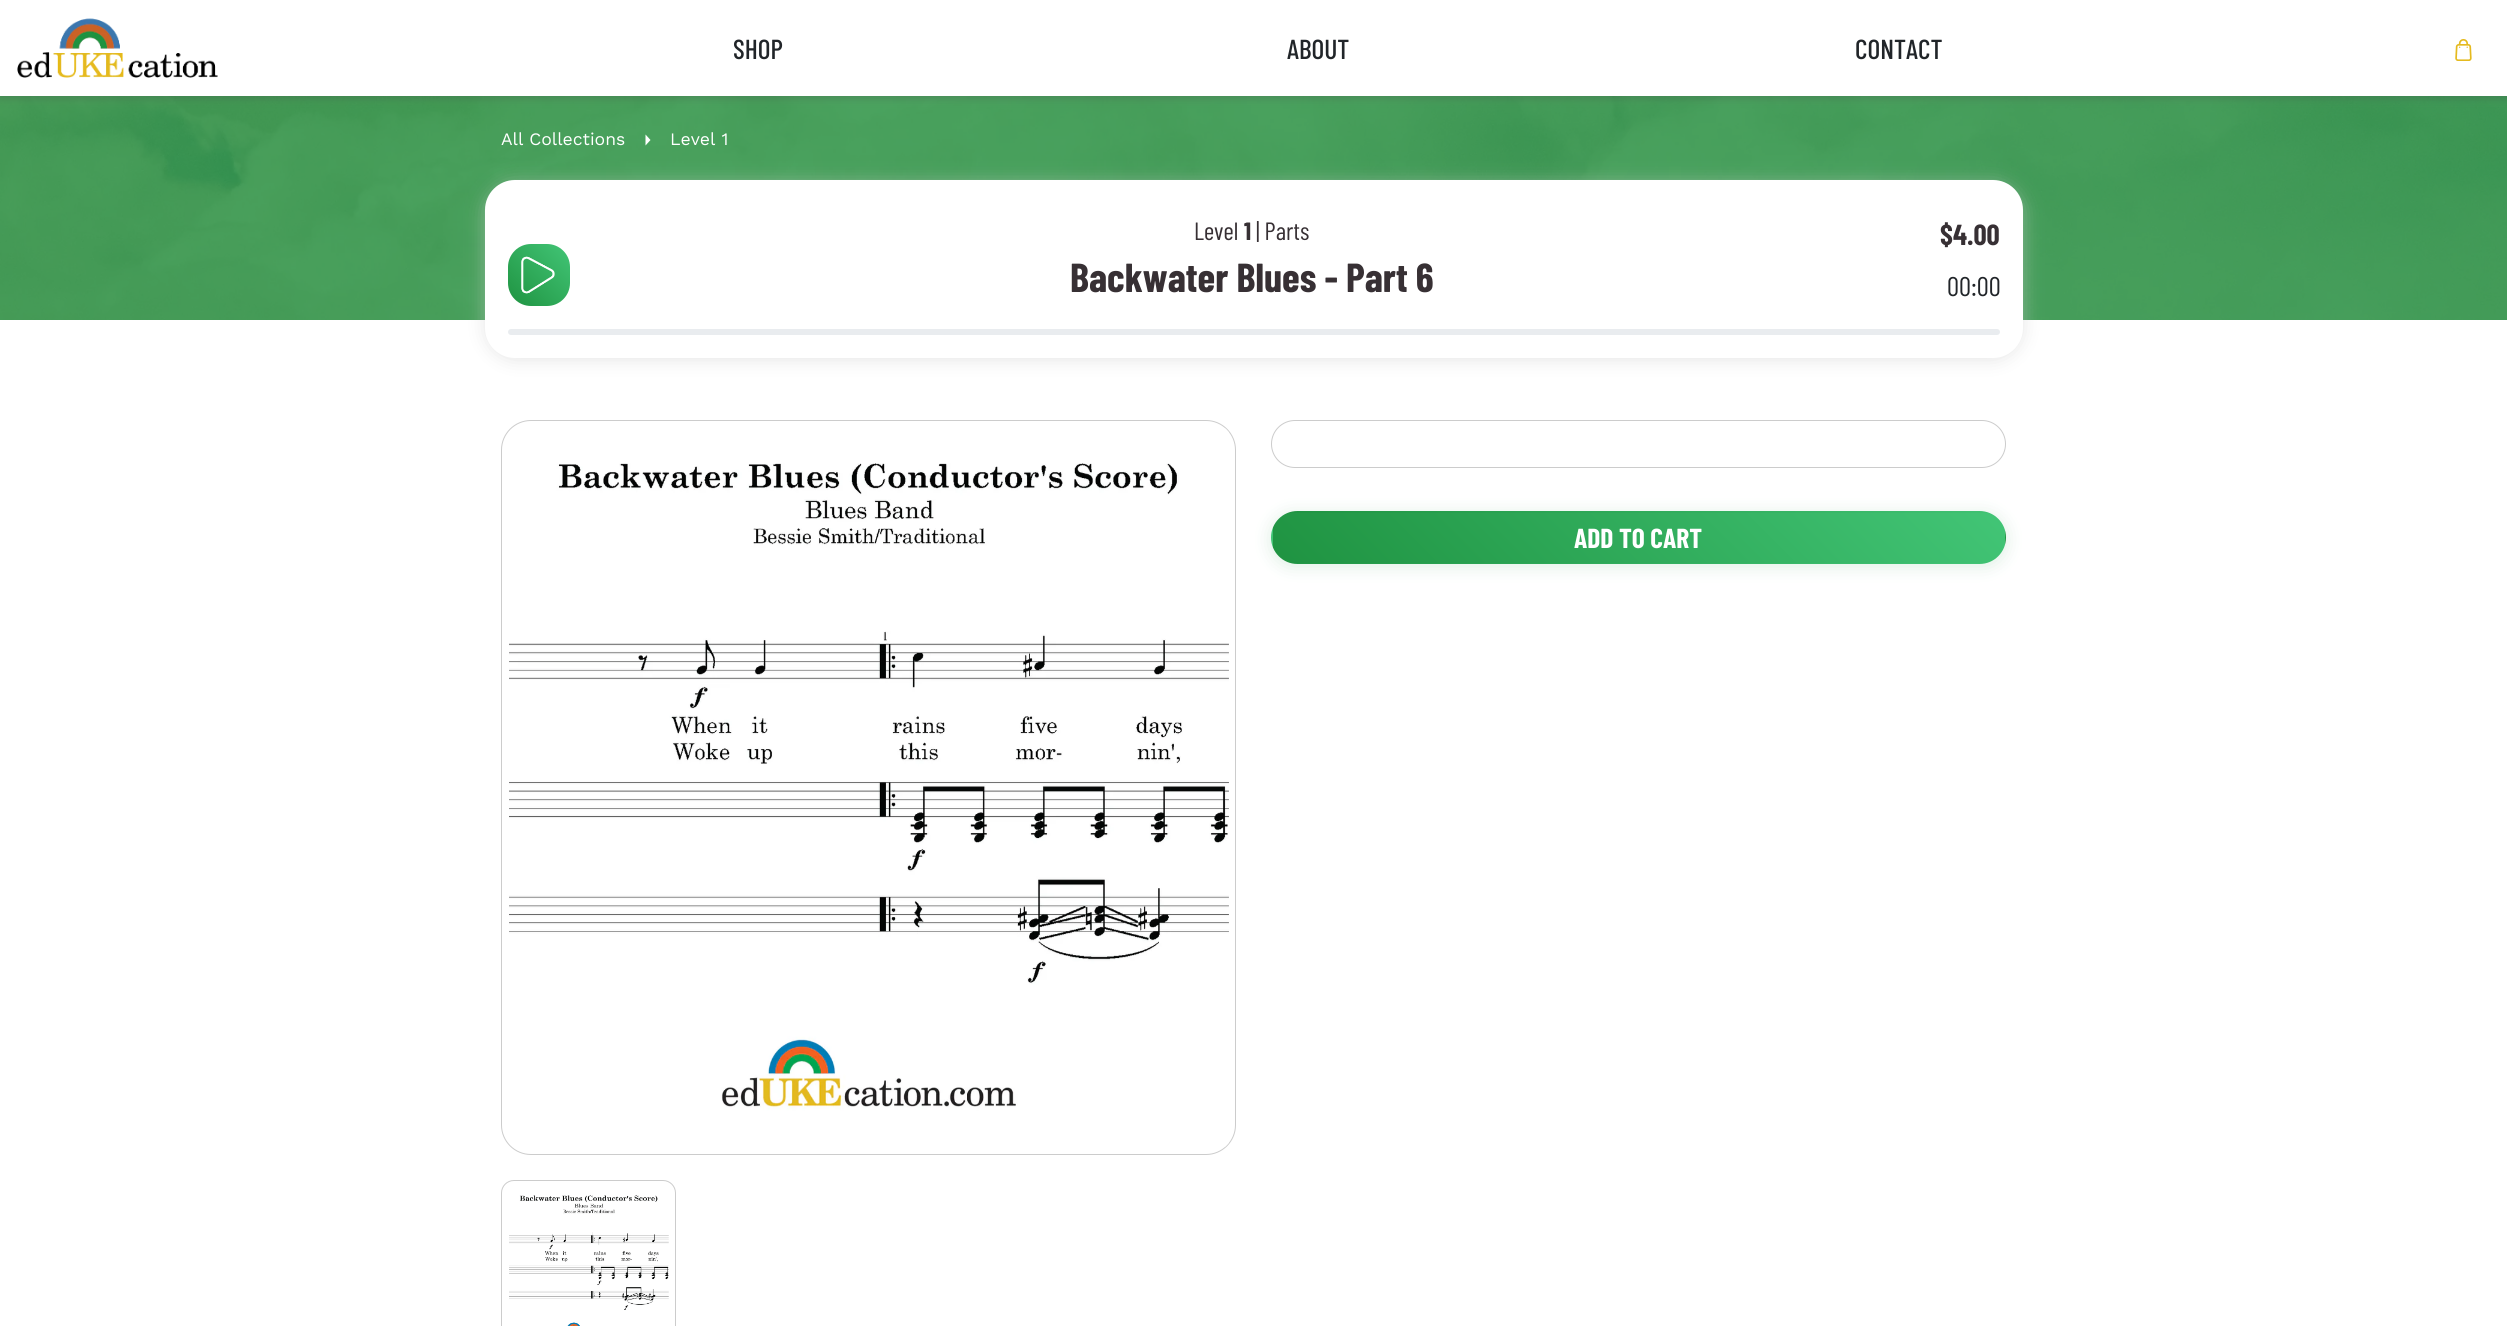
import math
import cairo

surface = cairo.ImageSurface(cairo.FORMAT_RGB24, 2507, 1326)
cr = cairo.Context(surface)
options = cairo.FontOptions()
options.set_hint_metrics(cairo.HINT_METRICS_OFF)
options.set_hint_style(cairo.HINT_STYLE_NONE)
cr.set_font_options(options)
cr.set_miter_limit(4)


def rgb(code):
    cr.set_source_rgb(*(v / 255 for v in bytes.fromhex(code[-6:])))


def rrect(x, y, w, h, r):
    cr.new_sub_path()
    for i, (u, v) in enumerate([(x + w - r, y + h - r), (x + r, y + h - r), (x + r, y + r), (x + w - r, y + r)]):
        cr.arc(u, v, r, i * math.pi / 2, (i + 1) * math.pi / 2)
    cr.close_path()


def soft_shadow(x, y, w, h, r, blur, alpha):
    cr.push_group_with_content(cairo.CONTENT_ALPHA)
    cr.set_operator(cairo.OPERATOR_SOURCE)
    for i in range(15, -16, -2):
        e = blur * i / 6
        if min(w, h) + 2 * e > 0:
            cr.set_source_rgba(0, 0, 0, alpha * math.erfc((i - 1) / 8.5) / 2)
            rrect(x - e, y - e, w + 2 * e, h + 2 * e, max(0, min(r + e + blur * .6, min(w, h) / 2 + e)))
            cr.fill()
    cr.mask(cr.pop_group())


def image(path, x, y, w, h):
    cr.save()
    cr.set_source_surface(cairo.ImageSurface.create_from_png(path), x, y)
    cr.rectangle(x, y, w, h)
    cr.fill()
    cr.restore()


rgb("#ffffff")
cr.paint()
image("img/3.png", 0, 96, 2507, 224)
rgb("#4d4d4d")
soft_shadow(0, 3, 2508, 96, 0, 4, 0.25)
rgb("#ffffff")
cr.rectangle(0, 0, 2507, 96)
cr.fill()
image("img/1.png", 17, 18, 201, 60)
image("img/2.png", 2455, 39, 17, 22)
cr.new_path()
cr.move_to(650.5, 140)
cr.line_to(645.5, 145.5)
cr.line_to(645.5, 134.5)
cr.close_path()
cr.fill()
rgb("#cccccc")
soft_shadow(485, 183, 1538, 177, 30, 9, 0.5)
rgb("#ffffff")
rrect(485, 180, 1538, 178, 30)
cr.fill()
gradient = cairo.LinearGradient(570, 244, 508, 306)
gradient.add_color_stop_rgba(0, 0.259, 0.773, 0.463, 1)
gradient.add_color_stop_rgba(1, 0.122, 0.576, 0.255, 1)
cr.set_source(gradient)
rrect(508, 244, 62, 62, 23)
cr.fill()
image("img/4.png", 521, 256, 34, 38)
rgb("#e9ecef")
rrect(508, 329, 1492, 6, 3)
cr.fill()
rrect(501.5, 420.5, 734, 734, 29.5)
rgb("#cccccc")
cr.set_line_width(1)
cr.stroke()
image("img/5.png", 509, 428, 720, 719)
rrect(501.5, 1180.5, 174, 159, 12.5)
cr.stroke()
image("img/6.png", 509, 1195, 160, 131)
rrect(1271.5, 420.5, 734, 47, 23.5)
cr.stroke()
rgb("#1f9341")
soft_shadow(1271, 514, 735, 52, 26, 9, 0.15)
cr.save()
rrect(1271, 511, 735, 53, 26.5)
cr.clip()
gradient = cairo.LinearGradient(1834, 292, 1443, 683)
gradient.add_color_stop_rgba(0, 0.259, 0.773, 0.463, 1)
gradient.add_color_stop_rgba(1, 0.122, 0.576, 0.255, 1)
cr.set_source(gradient)
cr.rectangle(1287, 511, 703, 2)
cr.fill()
gradient = cairo.LinearGradient(1102, 342, 711, 733)
gradient.add_color_stop_rgba(0, 0.259, 0.773, 0.463, 1)
gradient.add_color_stop_rgba(1, 0.122, 0.576, 0.255, 1)
cr.set_source(gradient)
cr.rectangle(1271, 527, 2, 21)
cr.fill()
gradient = cairo.LinearGradient(1834, 342, 1443, 733)
gradient.add_color_stop_rgba(0, 0.259, 0.773, 0.463, 1)
gradient.add_color_stop_rgba(1, 0.122, 0.576, 0.255, 1)
cr.set_source(gradient)
cr.rectangle(1273, 513, 732, 50)
cr.fill()
gradient = cairo.LinearGradient(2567, 342, 2176, 733)
gradient.add_color_stop_rgba(0, 0.259, 0.773, 0.463, 1)
gradient.add_color_stop_rgba(1, 0.122, 0.576, 0.255, 1)
cr.set_source(gradient)
cr.rectangle(2005, 530, 1, 15)
cr.fill()
gradient = cairo.LinearGradient(1834, 392, 1443, 783)
gradient.add_color_stop_rgba(0, 0.259, 0.773, 0.463, 1)
gradient.add_color_stop_rgba(1, 0.122, 0.576, 0.255, 1)
cr.set_source(gradient)
cr.rectangle(1290, 563, 697, 1)
cr.fill()
cr.restore()
cr.select_font_face("Barlow Condensed Medium")
cr.set_font_size(27.5)
rgb("#212529")
for x, y, s in [
    (733, 59, "SHOP"),
    (1287, 59, "ABOUT"),
    (1855, 59, "CONTACT"),
]:
    cr.move_to(x, y)
    cr.show_text(s)
cr.select_font_face("Work Sans")
cr.set_font_size(17.5)
rgb("#ffffff")
cr.move_to(501, 145)
cr.show_text("All Collections")
cr.move_to(670, 145)
cr.show_text("Level 1")
cr.select_font_face("Barlow Condensed")
cr.set_font_size(25)
rgb("#373034")
cr.move_to(1194, 240)
cr.show_text("Level")
cr.select_font_face("Barlow Condensed", cairo.FONT_SLANT_NORMAL, cairo.FONT_WEIGHT_BOLD)
cr.move_to(1244, 240)
cr.show_text("1")
cr.select_font_face("Barlow Condensed")
cr.move_to(1256, 240)
cr.show_text("| Parts")
cr.select_font_face("Barlow Condensed", cairo.FONT_SLANT_NORMAL, cairo.FONT_WEIGHT_BOLD)
cr.set_font_size(40.5)
cr.move_to(1070, 292)
cr.show_text("Backwater Blues - Part 6")
cr.set_font_size(29)
cr.move_to(1940, 245)
cr.show_text("$4.00")
cr.select_font_face("Barlow Condensed")
cr.set_font_size(27)
rgb("#212529")
cr.move_to(1947, 296)
cr.show_text("00:00")
cr.select_font_face("Barlow Condensed", cairo.FONT_SLANT_NORMAL, cairo.FONT_WEIGHT_BOLD)
cr.set_font_size(27.5)
rgb("#ffffff")
cr.move_to(1574, 548)
cr.show_text("ADD TO CART")
surface.write_to_png("page.png")
